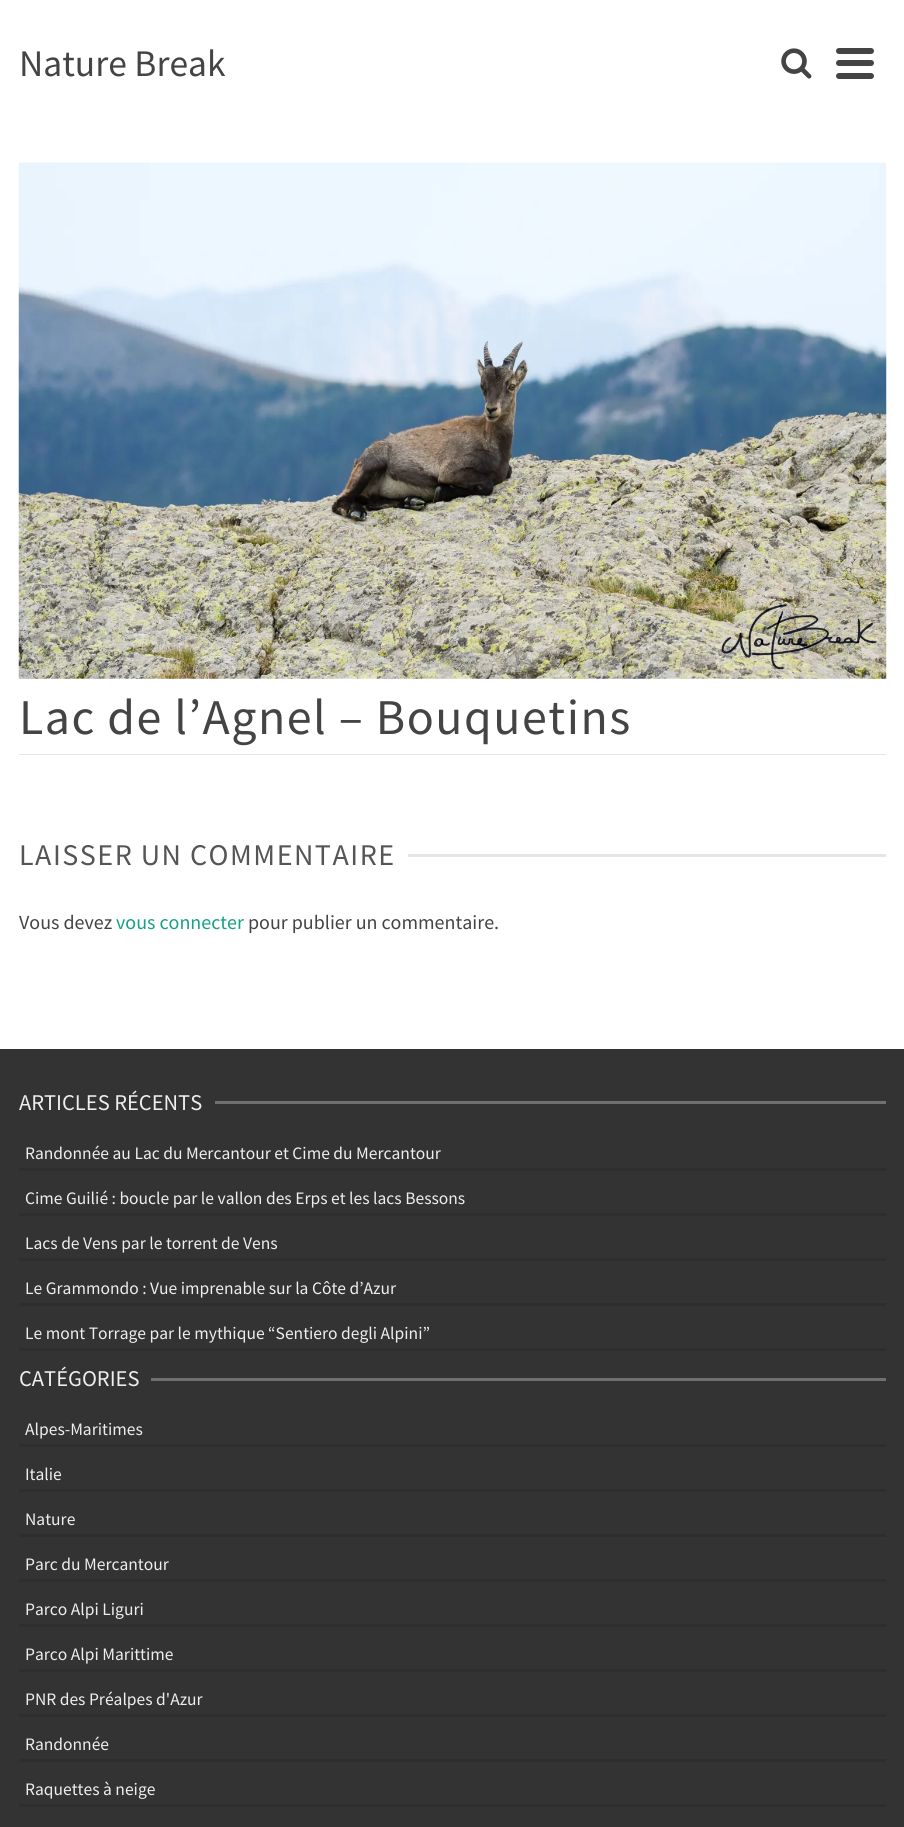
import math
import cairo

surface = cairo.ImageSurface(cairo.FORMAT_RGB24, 904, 1827)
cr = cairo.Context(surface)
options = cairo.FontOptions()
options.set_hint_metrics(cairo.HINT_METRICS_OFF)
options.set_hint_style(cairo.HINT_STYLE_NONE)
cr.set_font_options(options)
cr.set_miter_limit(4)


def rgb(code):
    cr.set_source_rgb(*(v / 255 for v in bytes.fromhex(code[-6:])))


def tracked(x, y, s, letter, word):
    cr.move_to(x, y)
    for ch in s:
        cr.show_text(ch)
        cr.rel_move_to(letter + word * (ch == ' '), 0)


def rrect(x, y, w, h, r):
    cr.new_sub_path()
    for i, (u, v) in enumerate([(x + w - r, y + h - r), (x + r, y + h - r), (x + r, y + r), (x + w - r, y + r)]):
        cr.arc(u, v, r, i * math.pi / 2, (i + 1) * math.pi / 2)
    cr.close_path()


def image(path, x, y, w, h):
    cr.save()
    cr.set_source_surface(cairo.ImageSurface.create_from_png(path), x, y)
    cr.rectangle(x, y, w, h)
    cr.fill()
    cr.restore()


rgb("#ffffff")
cr.paint()
image("img/1.png", 781, 48, 31, 31)
rgb("#444444")
rrect(836, 48, 38, 6, 3)
cr.fill()
rrect(836, 60, 38, 6, 3)
cr.fill()
rrect(836, 73, 38, 6, 3)
cr.fill()
image("img/2.png", 18, 162, 869, 517)
for x, y, w, h, color in [
    (19, 754, 867, 1, "#e6e6e6"),
    (408, 854, 478, 3, "#e6e6e6"),
    (0, 1049, 904, 778, "#333333"),
    (215, 1101, 671, 3, "#707070"),
    (19, 1168, 867, 3, "#2e2e2e"),
    (19, 1213, 867, 3, "#2e2e2e"),
    (19, 1258, 867, 3, "#2e2e2e"),
    (19, 1303, 867, 3, "#2e2e2e"),
    (19, 1348, 867, 3, "#2e2e2e"),
    (151, 1378, 735, 3, "#707070"),
    (19, 1444, 867, 3, "#2e2e2e"),
    (19, 1489, 867, 3, "#2e2e2e"),
    (19, 1534, 867, 3, "#2e2e2e"),
    (19, 1579, 867, 3, "#2e2e2e"),
    (19, 1624, 867, 3, "#2e2e2e"),
    (19, 1669, 867, 3, "#2e2e2e"),
    (19, 1714, 867, 3, "#2e2e2e"),
    (19, 1759, 867, 3, "#2e2e2e"),
    (19, 1804, 867, 3, "#2e2e2e"),
]:
    rgb(color)
    cr.rectangle(x, y, w, h)
    cr.fill()
cr.select_font_face("Source Sans Pro")
cr.set_font_size(37.5)
rgb("#444444")
cr.move_to(19, 76)
cr.show_text("Nature Break")
cr.set_font_size(50)
tracked(19, 734, "Lac de l’Agnel – Bouquetins", 1.5, 0)
cr.set_font_size(30)
rgb("#555555")
tracked(19, 865, "LAISSER UN COMMENTAIRE", 1.5, 0)
cr.set_font_size(20)
rgb("#444444")
cr.move_to(19, 929)
cr.show_text("Vous devez")
rgb("#16a085")
cr.move_to(116, 929)
cr.show_text("vous connecter")
rgb("#444444")
cr.move_to(248, 929)
cr.show_text("pour publier un commentaire.")
cr.set_font_size(22.5)
rgb("#eeeeee")
cr.move_to(19, 1110)
cr.show_text("ARTICLES RÉCENTS")
cr.set_font_size(17.5)
for x, y, s in [
    (25, 1159, "Randonnée au Lac du Mercantour et Cime du Mercantour"),
    (25, 1204, "Cime Guilié : boucle par le vallon des Erps et les lacs Bessons"),
    (25, 1249, "Lacs de Vens par le torrent de Vens"),
    (25, 1294, "Le Grammondo : Vue imprenable sur la Côte d’Azur"),
    (25, 1339, "Le mont Torrage par le mythique “Sentiero degli Alpini”"),
]:
    cr.move_to(x, y)
    cr.show_text(s)
cr.set_font_size(22.5)
cr.move_to(19, 1386)
cr.show_text("CATÉGORIES")
cr.set_font_size(17.5)
for x, y, s in [
    (25, 1435, "Alpes-Maritimes"),
    (25, 1480, "Italie"),
    (25, 1525, "Nature"),
    (25, 1570, "Parc du Mercantour"),
    (25, 1615, "Parco Alpi Liguri"),
    (25, 1660, "Parco Alpi Marittime"),
    (25, 1705, "PNR des Préalpes d'Azur"),
    (25, 1750, "Randonnée"),
    (25, 1795, "Raquettes à neige"),
]:
    cr.move_to(x, y)
    cr.show_text(s)
surface.write_to_png("page.png")
